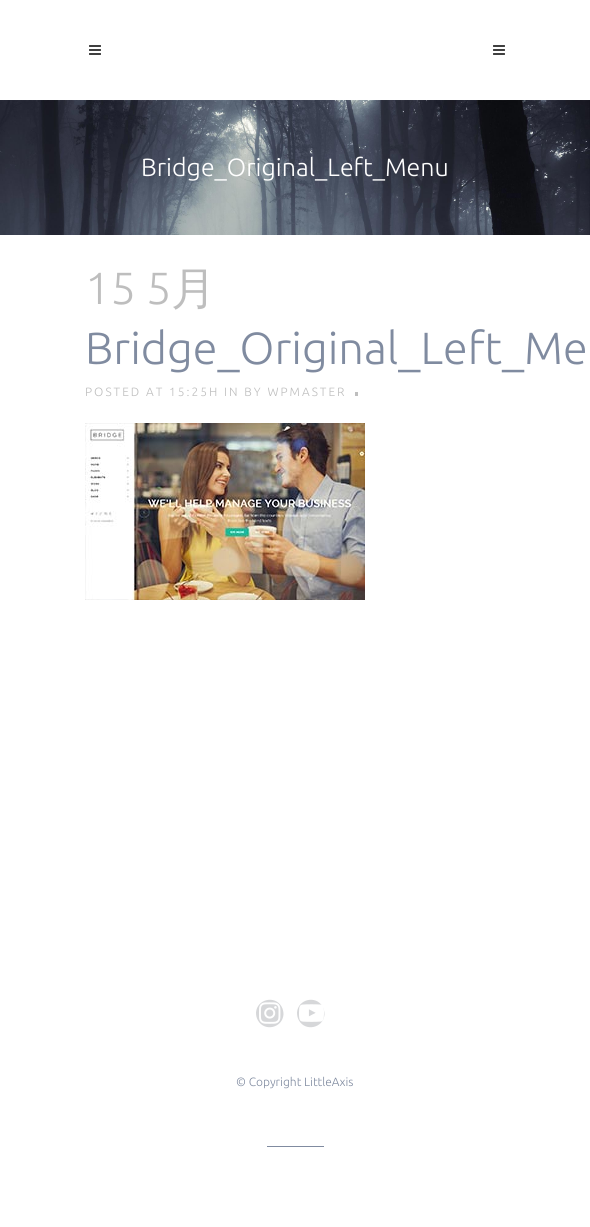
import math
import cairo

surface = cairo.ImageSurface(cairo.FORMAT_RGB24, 590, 1227)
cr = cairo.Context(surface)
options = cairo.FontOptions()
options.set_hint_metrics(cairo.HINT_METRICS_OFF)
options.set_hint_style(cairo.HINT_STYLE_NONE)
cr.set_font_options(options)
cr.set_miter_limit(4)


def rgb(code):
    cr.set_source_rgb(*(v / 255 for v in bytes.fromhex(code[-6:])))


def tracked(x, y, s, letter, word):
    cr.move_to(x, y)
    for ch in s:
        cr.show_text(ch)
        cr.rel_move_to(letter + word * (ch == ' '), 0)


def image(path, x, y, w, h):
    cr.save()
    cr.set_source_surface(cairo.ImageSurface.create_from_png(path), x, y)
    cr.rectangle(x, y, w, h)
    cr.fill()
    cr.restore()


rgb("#ffffff")
cr.paint()
image("img/1.png", 89, 45, 12, 10)
image("img/1.png", 493, 45, 12, 10)
image("img/2.png", 0, 100, 590, 135)
rgb("#bebebe")
cr.rectangle(355, 392, 3, 4)
cr.fill()
image("img/3.png", 85, 423, 280, 177)
rgb("#d6d7d9")
cr.new_path()
cr.move_to(281.5, 1006.5)
cr.curve_to(283, 1009, 283.5, 1012, 283.5, 1014.5)
cr.curve_to(282.5, 1028, 264.5, 1032, 258, 1020.5)
cr.curve_to(256.5, 1018, 256, 1015.5, 256, 1012.5)
cr.curve_to(257, 999, 275, 995, 281.5, 1006.5)
cr.close_path()
cr.fill()
image("img/4.png", 259, 1002, 22, 22)
cr.new_path()
cr.move_to(322.5, 1006.5)
cr.curve_to(324, 1009, 324.5, 1012, 324.5, 1014.5)
cr.curve_to(323.5, 1028, 305.5, 1032, 299, 1020.5)
cr.curve_to(297.5, 1018, 297, 1015.5, 297, 1012.5)
cr.curve_to(298, 999, 316, 995, 322.5, 1006.5)
cr.close_path()
cr.fill()
image("img/5.png", 299, 1004, 25, 18)
rgb("#808ba0")
cr.rectangle(267, 1146, 57, 1)
cr.fill()
cr.select_font_face("Ubuntu Light")
cr.set_font_size(25)
rgb("#ffffff")
cr.move_to(141, 176)
cr.show_text("Bridge_Original_Left_Menu")
cr.set_font_size(45)
rgb("#bebebe")
cr.move_to(85, 304)
cr.show_text("15 5")
cr.select_font_face("WenQuanYi Zen Hei Medium")
cr.move_to(171, 304)
cr.show_text("月")
cr.select_font_face("Ubuntu Light")
rgb("#808ba0")
cr.move_to(85, 364)
cr.show_text("Bridge_Original_Left_Me")
cr.set_font_size(12)
rgb("#bebebe")
tracked(85, 396, "POSTED AT 15:25H IN BY WPMASTER", 2, 0)
rgb("#808ba0")
cr.move_to(236, 1086)
cr.show_text("© Copyright LittleAxis")
surface.write_to_png("page.png")
